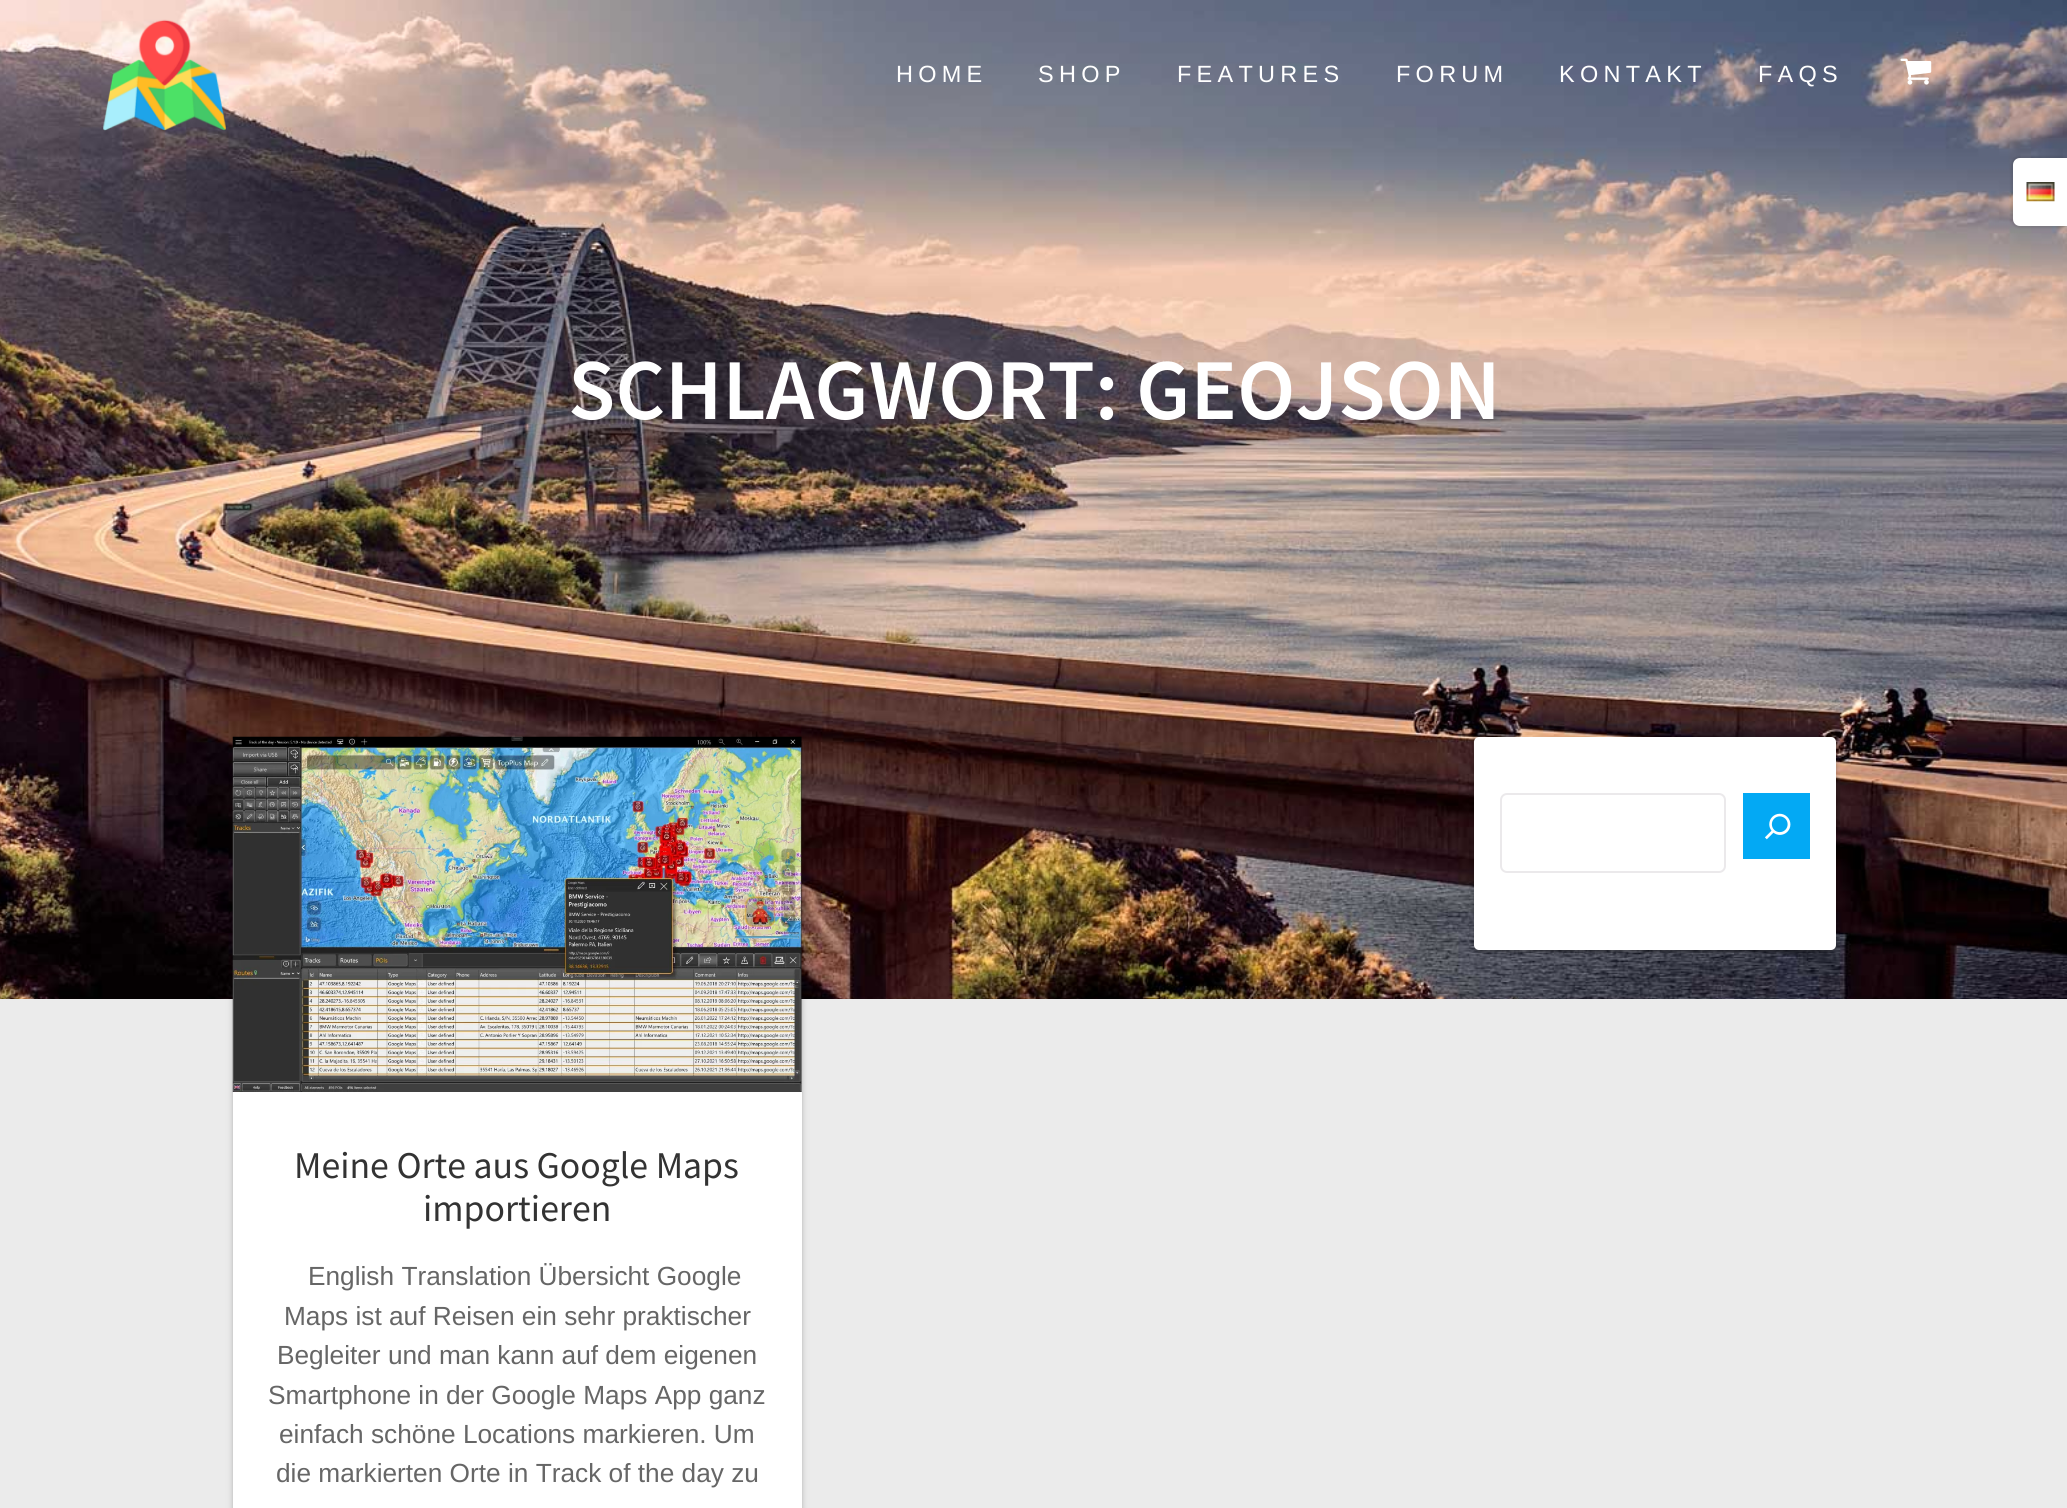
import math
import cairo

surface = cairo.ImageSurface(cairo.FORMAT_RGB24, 2067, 1508)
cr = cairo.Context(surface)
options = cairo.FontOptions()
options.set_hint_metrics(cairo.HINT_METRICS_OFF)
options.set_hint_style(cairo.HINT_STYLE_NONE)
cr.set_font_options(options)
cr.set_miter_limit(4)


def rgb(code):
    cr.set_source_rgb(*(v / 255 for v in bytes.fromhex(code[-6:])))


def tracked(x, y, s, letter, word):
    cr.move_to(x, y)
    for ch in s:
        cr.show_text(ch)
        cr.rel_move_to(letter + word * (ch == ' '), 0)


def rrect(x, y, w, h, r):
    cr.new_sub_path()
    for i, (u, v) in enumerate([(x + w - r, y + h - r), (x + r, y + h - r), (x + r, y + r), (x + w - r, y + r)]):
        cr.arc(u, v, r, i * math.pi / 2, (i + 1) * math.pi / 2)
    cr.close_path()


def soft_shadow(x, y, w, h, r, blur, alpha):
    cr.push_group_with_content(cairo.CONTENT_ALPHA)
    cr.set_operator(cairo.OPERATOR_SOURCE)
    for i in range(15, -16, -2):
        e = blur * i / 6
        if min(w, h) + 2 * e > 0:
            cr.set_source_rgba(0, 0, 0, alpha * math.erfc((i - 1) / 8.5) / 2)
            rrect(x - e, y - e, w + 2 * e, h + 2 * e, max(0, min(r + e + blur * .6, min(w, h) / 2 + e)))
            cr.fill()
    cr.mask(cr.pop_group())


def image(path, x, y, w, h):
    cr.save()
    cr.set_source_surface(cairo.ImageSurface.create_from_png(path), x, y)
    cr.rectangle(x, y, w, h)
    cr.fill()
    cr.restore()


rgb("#ffffff")
cr.paint()
image("img/4.png", 0, 0, 2067, 999)
image("img/1.png", 103, 19, 123, 112)
image("img/2.png", 1900, 58, 32, 27)
rgb("#000000")
soft_shadow(2011, 156, 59, 72, 9, 1, 0.1)
rgb("#ffffff")
cr.new_path()
cr.move_to(2020, 158)
cr.line_to(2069, 158)
cr.line_to(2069, 226)
cr.line_to(2020, 226)
cr.curve_to(2016, 226, 2013, 223, 2013, 219)
cr.line_to(2013, 165)
cr.curve_to(2013, 161, 2016, 158, 2020, 158)
cr.close_path()
cr.fill()
image("img/3.png", 2026, 182, 29, 20)
rgb("#ebebeb")
cr.rectangle(0, 999, 2067, 509)
cr.fill()
rgb("#000000")
soft_shadow(1474, 739, 362, 213, 5, 4.5, 0.12)
soft_shadow(1477, 746, 355, 206, 2, 1, 0.2)
soft_shadow(1474, 739, 362, 213, 5, 2, 0.14)
rgb("#ffffff")
rrect(1474, 737, 362, 213, 5)
cr.fill()
rrect(1501, 794, 224, 78, 6)
rgb("#ebe9eb")
cr.stroke()
rgb("#03a9f4")
cr.rectangle(1743, 793, 67, 66)
cr.fill()
image("img/5.png", 1765, 813, 26, 27)
rgb("#000000")
soft_shadow(233, 739, 569, 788, 5, 4.5, 0.12)
soft_shadow(233, 739, 569, 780, 5, 2, 0.14)
image("img/6.png", 232, 736, 570, 356)
rgb("#ffffff")
cr.rectangle(233, 1092, 569, 416)
cr.fill()
cr.select_font_face("Liberation Sans")
cr.set_font_size(23.5)
for x, y, s in [
    (896, 82, "HOME"),
    (1038, 82, "SHOP"),
    (1177, 82, "FEATURES"),
    (1396, 82, "FORUM"),
    (1559, 82, "KONTAKT"),
    (1758, 82, "FAQS"),
]:
    tracked(x, y, s, 5.25, 0)
cr.select_font_face("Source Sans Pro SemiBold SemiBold")
cr.set_font_size(86.6)
cr.move_to(568, 419)
cr.show_text("SCHLAGWORT: GEOJSON")
cr.select_font_face("Source Sans Pro")
cr.set_font_size(37.75)
rgb("#333333")
cr.move_to(294, 1178)
cr.show_text("Meine Orte aus Google Maps")
cr.move_to(423, 1221)
cr.show_text("importieren")
cr.select_font_face("Liberation Sans")
cr.set_font_size(26.25)
rgb("#666666")
for x, y, s in [
    (308, 1285, "English Translation Übersicht Google"),
    (284, 1325, "Maps ist auf Reisen ein sehr praktischer"),
    (277, 1364, "Begleiter und man kann auf dem eigenen"),
    (268, 1404, "Smartphone in der Google Maps App ganz"),
    (279, 1443, "einfach schöne Locations markieren. Um"),
    (276, 1482, "die markierten Orte in Track of the day zu"),
]:
    cr.move_to(x, y)
    cr.show_text(s)
surface.write_to_png("page.png")
